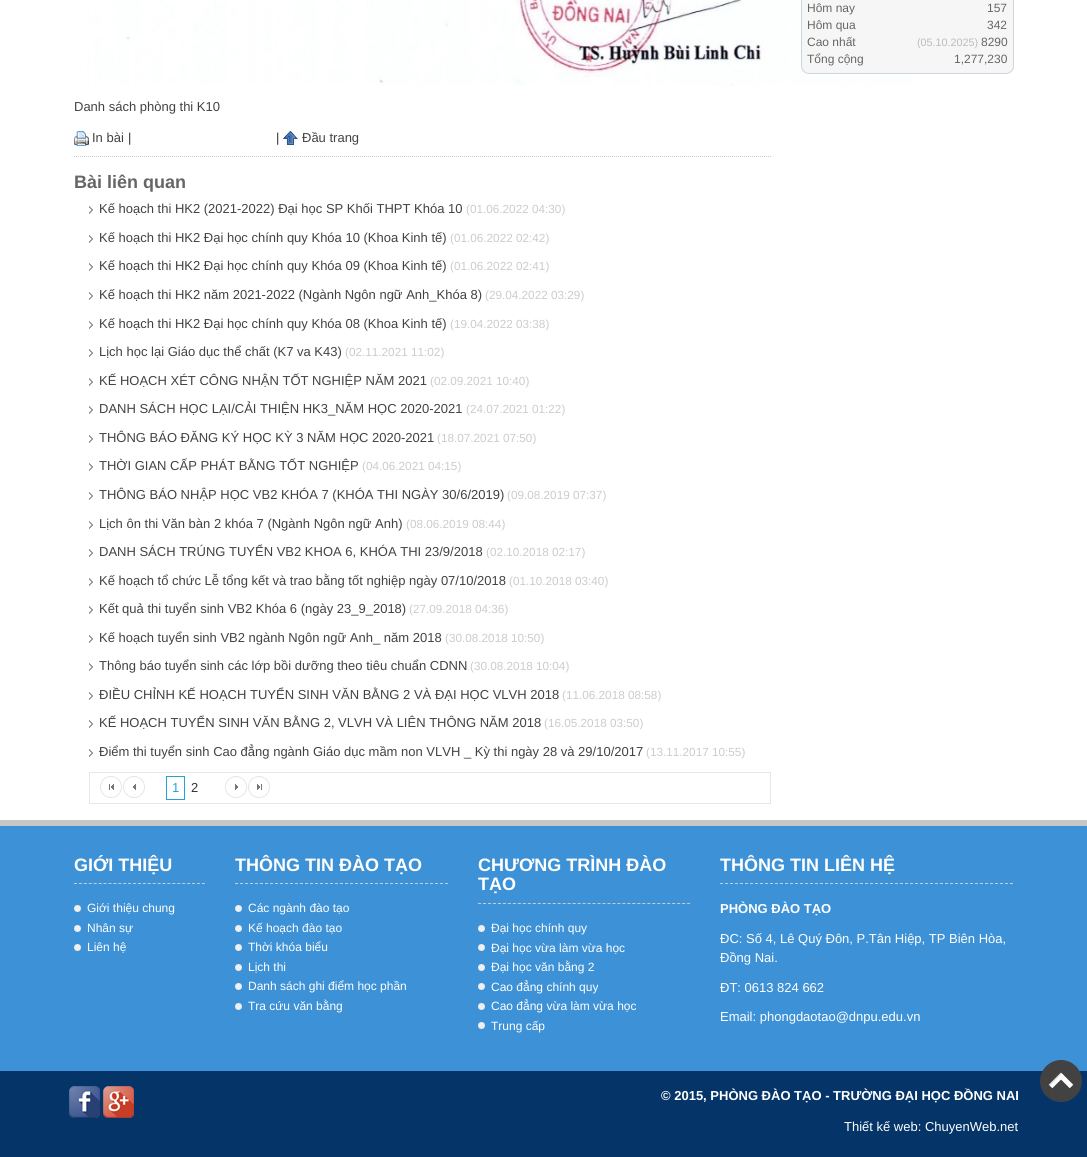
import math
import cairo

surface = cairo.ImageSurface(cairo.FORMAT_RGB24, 1087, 1157)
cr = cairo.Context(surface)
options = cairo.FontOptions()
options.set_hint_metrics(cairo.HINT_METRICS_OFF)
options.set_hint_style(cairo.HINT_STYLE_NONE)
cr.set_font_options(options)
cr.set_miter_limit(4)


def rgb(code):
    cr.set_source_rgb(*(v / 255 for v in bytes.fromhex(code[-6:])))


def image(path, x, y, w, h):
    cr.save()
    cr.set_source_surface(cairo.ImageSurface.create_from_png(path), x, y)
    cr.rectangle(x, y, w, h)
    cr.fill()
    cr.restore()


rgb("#ffffff")
cr.paint()
image("img/1.png", 87, 0, 825, 86)
rgb("#f6f6f6")
cr.new_path()
cr.move_to(801.5, -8.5)
cr.line_to(1013.5, -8.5)
cr.line_to(1013.5, 66)
cr.curve_to(1013.5, 70, 1010, 73.5, 1006, 73.5)
cr.line_to(809, 73.5)
cr.curve_to(805, 73.5, 801.5, 70, 801.5, 66)
cr.close_path()
cr.fill_preserve()
rgb("#ccd6e0")
cr.set_line_width(1)
cr.stroke()
image("img/2.png", 74, 131, 15, 15)
image("img/3.png", 283, 131, 15, 14)
cr.new_path()
cr.move_to(74, 156.5)
cr.line_to(771, 156.5)
rgb("#cccccc")
cr.set_dash([1, 1])
cr.stroke()
image("img/4.png", 89, 206, 4, 8)
image("img/4.png", 89, 235, 4, 8)
image("img/4.png", 89, 263, 4, 8)
image("img/4.png", 89, 292, 4, 8)
image("img/4.png", 89, 321, 4, 8)
image("img/4.png", 89, 349, 4, 8)
image("img/4.png", 89, 378, 4, 8)
image("img/4.png", 89, 406, 4, 8)
image("img/4.png", 89, 435, 4, 8)
image("img/4.png", 89, 463, 4, 8)
image("img/4.png", 89, 492, 4, 8)
image("img/4.png", 89, 521, 4, 8)
image("img/4.png", 89, 549, 4, 8)
image("img/4.png", 89, 578, 4, 8)
image("img/4.png", 89, 606, 4, 8)
image("img/4.png", 89, 635, 4, 8)
image("img/4.png", 89, 663, 4, 8)
image("img/4.png", 89, 692, 4, 8)
image("img/4.png", 89, 720, 4, 8)
image("img/4.png", 89, 749, 4, 8)
cr.rectangle(89.5, 772.5, 681, 31)
rgb("#e6e6e6")
cr.set_dash([])
cr.stroke()
image("img/5.png", 100, 776, 22, 22)
image("img/6.png", 123, 776, 22, 22)
cr.rectangle(166.5, 776.5, 18, 23)
rgb("#25a0da")
cr.stroke()
image("img/7.png", 225, 776, 22, 22)
image("img/8.png", 248, 776, 22, 22)
rgb("#3d91d6")
cr.rectangle(0, 826, 1087, 245)
cr.fill()
rgb("#c7c7c7")
cr.rectangle(0, 820, 1087, 6)
cr.fill()
cr.new_path()
cr.move_to(74, 883.5)
cr.line_to(205, 883.5)
rgb("#cccccc")
cr.set_dash([3, 1.92])
cr.stroke()
image("img/9.png", 74, 905, 7, 7)
image("img/9.png", 74, 925, 7, 7)
image("img/9.png", 74, 944, 7, 7)
cr.new_path()
cr.move_to(235, 883.5)
cr.line_to(448, 883.5)
cr.set_dash([3, 2])
cr.stroke()
image("img/9.png", 235, 905, 7, 7)
image("img/9.png", 235, 925, 7, 7)
image("img/9.png", 235, 944, 7, 7)
image("img/9.png", 235, 964, 7, 7)
image("img/9.png", 235, 983, 7, 7)
image("img/9.png", 235, 1003, 7, 7)
cr.new_path()
cr.move_to(478, 903.5)
cr.line_to(690, 903.5)
cr.set_dash([3, 1.98])
cr.stroke()
image("img/9.png", 478, 925, 7, 7)
image("img/9.png", 478, 944, 7, 7)
image("img/9.png", 478, 964, 7, 7)
image("img/9.png", 478, 983, 7, 7)
image("img/9.png", 478, 1003, 7, 7)
image("img/9.png", 478, 1022, 7, 7)
cr.new_path()
cr.move_to(720, 883.5)
cr.line_to(1013, 883.5)
cr.set_dash([3, 2])
cr.stroke()
rgb("#043468")
cr.rectangle(0, 1071, 1087, 86)
cr.fill()
image("img/10.png", 69, 1086, 31, 32)
image("img/11.png", 103, 1086, 31, 32)
image("img/12.png", 1040, 1060, 42, 42)
cr.select_font_face("Liberation Sans")
cr.set_font_size(12)
rgb("#666666")
for x, y, s in [
    (807, 12, "Hôm nay"),
    (987, 12, "157"),
    (807, 29, "Hôm qua"),
    (987, 29, "342"),
    (807, 46, "Cao nhất"),
]:
    cr.move_to(x, y)
    cr.show_text(s)
cr.set_font_size(10.75)
rgb("#bbbbbb")
cr.move_to(917, 46)
cr.show_text("(05.10.2025)")
cr.set_font_size(12)
rgb("#666666")
for x, y, s in [
    (981, 46, "8290"),
    (807, 63, "Tổng cộng"),
    (954, 63, "1,277,230"),
]:
    cr.move_to(x, y)
    cr.show_text(s)
cr.set_font_size(13)
rgb("#424242")
cr.move_to(74, 111)
cr.show_text("Danh sách phòng thi K10")
cr.move_to(92, 142)
cr.show_text("In bài")
rgb("#333333")
cr.move_to(128, 142)
cr.show_text("|")
cr.move_to(276, 142)
cr.show_text("|")
rgb("#424242")
cr.move_to(302, 142)
cr.show_text("Đầu trang")
cr.select_font_face("Liberation Sans", cairo.FONT_SLANT_NORMAL, cairo.FONT_WEIGHT_BOLD)
cr.set_font_size(18)
rgb("#666666")
cr.move_to(74, 188)
cr.show_text("Bài liên quan")
cr.select_font_face("Liberation Sans")
cr.set_font_size(13)
rgb("#424242")
cr.move_to(99, 213)
cr.show_text("Kế hoạch thi HK2 (2021-2022) Đại học SP Khối THPT Khóa 10")
cr.set_font_size(11.75)
rgb("#cccccc")
cr.move_to(466, 213)
cr.show_text("(01.06.2022 04:30)")
cr.set_font_size(13)
rgb("#424242")
cr.move_to(99, 242)
cr.show_text("Kế hoạch thi HK2 Đại học chính quy Khóa 10 (Khoa Kinh tế)")
cr.set_font_size(11.75)
rgb("#cccccc")
cr.move_to(450, 242)
cr.show_text("(01.06.2022 02:42)")
cr.set_font_size(13)
rgb("#424242")
cr.move_to(99, 270)
cr.show_text("Kế hoạch thi HK2 Đại học chính quy Khóa 09 (Khoa Kinh tế)")
cr.set_font_size(11.75)
rgb("#cccccc")
cr.move_to(450, 270)
cr.show_text("(01.06.2022 02:41)")
cr.set_font_size(13)
rgb("#424242")
cr.move_to(99, 299)
cr.show_text("Kế hoạch thi HK2 năm 2021-2022 (Ngành Ngôn ngữ Anh_Khóa 8)")
cr.set_font_size(11.75)
rgb("#cccccc")
cr.move_to(485, 299)
cr.show_text("(29.04.2022 03:29)")
cr.set_font_size(13)
rgb("#424242")
cr.move_to(99, 328)
cr.show_text("Kế hoạch thi HK2 Đại học chính quy Khóa 08 (Khoa Kinh tế)")
cr.set_font_size(11.75)
rgb("#cccccc")
cr.move_to(450, 328)
cr.show_text("(19.04.2022 03:38)")
cr.set_font_size(13)
rgb("#424242")
cr.move_to(99, 356)
cr.show_text("Lịch học lại Giáo dục thể chất (K7 va K43)")
cr.set_font_size(11.75)
rgb("#cccccc")
cr.move_to(345, 356)
cr.show_text("(02.11.2021 11:02)")
cr.set_font_size(13)
rgb("#424242")
cr.move_to(99, 385)
cr.show_text("KẾ HOẠCH XÉT CÔNG NHẬN TỐT NGHIỆP NĂM 2021")
cr.set_font_size(11.75)
rgb("#cccccc")
cr.move_to(430, 385)
cr.show_text("(02.09.2021 10:40)")
cr.set_font_size(13)
rgb("#424242")
cr.move_to(99, 413)
cr.show_text("DANH SÁCH HỌC LẠI/CẢI THIỆN HK3_NĂM HỌC 2020-2021")
cr.set_font_size(11.75)
rgb("#cccccc")
cr.move_to(466, 413)
cr.show_text("(24.07.2021 01:22)")
cr.set_font_size(13)
rgb("#424242")
cr.move_to(99, 442)
cr.show_text("THÔNG BÁO ĐĂNG KÝ HỌC KỲ 3 NĂM HỌC 2020-2021")
cr.set_font_size(11.75)
rgb("#cccccc")
cr.move_to(437, 442)
cr.show_text("(18.07.2021 07:50)")
cr.set_font_size(13)
rgb("#424242")
cr.move_to(99, 470)
cr.show_text("THỜI GIAN CẤP PHÁT BẰNG TỐT NGHIỆP")
cr.set_font_size(11.75)
rgb("#cccccc")
cr.move_to(362, 470)
cr.show_text("(04.06.2021 04:15)")
cr.set_font_size(13)
rgb("#424242")
cr.move_to(99, 499)
cr.show_text("THÔNG BÁO NHẬP HỌC VB2 KHÓA 7 (KHÓA THI NGÀY 30/6/2019)")
cr.set_font_size(11.75)
rgb("#cccccc")
cr.move_to(507, 499)
cr.show_text("(09.08.2019 07:37)")
cr.set_font_size(13)
rgb("#424242")
cr.move_to(99, 528)
cr.show_text("Lịch ôn thi Văn bàn 2 khóa 7 (Ngành Ngôn ngữ Anh)")
cr.set_font_size(11.75)
rgb("#cccccc")
cr.move_to(406, 528)
cr.show_text("(08.06.2019 08:44)")
cr.set_font_size(13)
rgb("#424242")
cr.move_to(99, 556)
cr.show_text("DANH SÁCH TRÚNG TUYỂN VB2 KHOA 6, KHÓA THI 23/9/2018")
cr.set_font_size(11.75)
rgb("#cccccc")
cr.move_to(486, 556)
cr.show_text("(02.10.2018 02:17)")
cr.set_font_size(13)
rgb("#424242")
cr.move_to(99, 585)
cr.show_text("Kế hoạch tổ chức Lễ tổng kết và trao bằng tốt nghiệp ngày 07/10/2018")
cr.set_font_size(11.75)
rgb("#cccccc")
cr.move_to(509, 585)
cr.show_text("(01.10.2018 03:40)")
cr.set_font_size(13)
rgb("#424242")
cr.move_to(99, 613)
cr.show_text("Kết quả thi tuyển sinh VB2 Khóa 6 (ngày 23_9_2018)")
cr.set_font_size(11.75)
rgb("#cccccc")
cr.move_to(409, 613)
cr.show_text("(27.09.2018 04:36)")
cr.set_font_size(13)
rgb("#424242")
cr.move_to(99, 642)
cr.show_text("Kế hoạch tuyển sinh VB2 ngành Ngôn ngữ Anh_ năm 2018")
cr.set_font_size(11.75)
rgb("#cccccc")
cr.move_to(445, 642)
cr.show_text("(30.08.2018 10:50)")
cr.set_font_size(13)
rgb("#424242")
cr.move_to(99, 670)
cr.show_text("Thông báo tuyển sinh các lớp bồi dưỡng theo tiêu chuẩn CDNN")
cr.set_font_size(11.75)
rgb("#cccccc")
cr.move_to(470, 670)
cr.show_text("(30.08.2018 10:04)")
cr.set_font_size(13)
rgb("#424242")
cr.move_to(99, 699)
cr.show_text("ĐIỀU CHỈNH KẾ HOẠCH TUYỂN SINH VĂN BẰNG 2 VÀ ĐẠI HỌC VLVH 2018")
cr.set_font_size(11.75)
rgb("#cccccc")
cr.move_to(562, 699)
cr.show_text("(11.06.2018 08:58)")
cr.set_font_size(13)
rgb("#424242")
cr.move_to(99, 727)
cr.show_text("KẾ HOẠCH TUYỂN SINH VĂN BẰNG 2, VLVH VÀ LIÊN THÔNG NĂM 2018")
cr.set_font_size(11.75)
rgb("#cccccc")
cr.move_to(544, 727)
cr.show_text("(16.05.2018 03:50)")
cr.set_font_size(13)
rgb("#424242")
cr.move_to(99, 756)
cr.show_text("Điểm thi tuyển sinh Cao đẳng ngành Giáo dục mầm non VLVH _ Kỳ thi ngày 28 và 29/10/2017")
cr.set_font_size(11.75)
rgb("#cccccc")
cr.move_to(646, 756)
cr.show_text("(13.11.2017 10:55)")
cr.set_font_size(13)
rgb("#25a0da")
cr.move_to(172, 792)
cr.show_text("1")
rgb("#333333")
cr.move_to(191, 792)
cr.show_text("2")
cr.select_font_face("Liberation Sans", cairo.FONT_SLANT_NORMAL, cairo.FONT_WEIGHT_BOLD)
cr.set_font_size(18)
rgb("#ffffff")
cr.move_to(74, 871)
cr.show_text("GIỚI THIỆU")
cr.select_font_face("Liberation Sans")
cr.set_font_size(12)
for x, y, s in [
    (87, 912, "Giới thiệu chung"),
    (87, 932, "Nhân sự"),
    (87, 951, "Liên hệ"),
]:
    cr.move_to(x, y)
    cr.show_text(s)
cr.select_font_face("Liberation Sans", cairo.FONT_SLANT_NORMAL, cairo.FONT_WEIGHT_BOLD)
cr.set_font_size(18)
cr.move_to(235, 871)
cr.show_text("THÔNG TIN ĐÀO TẠO")
cr.select_font_face("Liberation Sans")
cr.set_font_size(12)
for x, y, s in [
    (248, 912, "Các ngành đào tạo"),
    (248, 932, "Kế hoạch đào tạo"),
    (248, 951, "Thời khóa biểu"),
    (248, 971, "Lịch thi"),
    (248, 990, "Danh sách ghi điểm học phần"),
    (248, 1010, "Tra cứu văn bằng"),
]:
    cr.move_to(x, y)
    cr.show_text(s)
cr.select_font_face("Liberation Sans", cairo.FONT_SLANT_NORMAL, cairo.FONT_WEIGHT_BOLD)
cr.set_font_size(18)
cr.move_to(478, 871)
cr.show_text("CHƯƠNG TRÌNH ĐÀO")
cr.move_to(478, 890)
cr.show_text("TẠO")
cr.select_font_face("Liberation Sans")
cr.set_font_size(12)
for x, y, s in [
    (491, 932, "Đại học chính quy"),
    (491, 952, "Đại học vừa làm vừa học"),
    (491, 971, "Đại học văn bằng 2"),
    (491, 991, "Cao đẳng chính quy"),
    (491, 1010, "Cao đẳng vừa làm vừa học"),
    (491, 1030, "Trung cấp"),
]:
    cr.move_to(x, y)
    cr.show_text(s)
cr.select_font_face("Liberation Sans", cairo.FONT_SLANT_NORMAL, cairo.FONT_WEIGHT_BOLD)
cr.set_font_size(18)
cr.move_to(720, 871)
cr.show_text("THÔNG TIN LIÊN HỆ")
cr.set_font_size(13)
cr.move_to(720, 913)
cr.show_text("PHÒNG ĐÀO TẠO")
cr.select_font_face("Liberation Sans")
for x, y, s in [
    (720, 943, "ĐC: Số 4, Lê Quý Đôn, P.Tân Hiệp, TP Biên Hòa,"),
    (720, 962, "Đồng Nai."),
    (720, 992, "ĐT: 0613 824 662"),
    (720, 1021, "Email: phongdaotao@dnpu.edu.vn"),
]:
    cr.move_to(x, y)
    cr.show_text(s)
cr.select_font_face("Liberation Sans", cairo.FONT_SLANT_NORMAL, cairo.FONT_WEIGHT_BOLD)
cr.move_to(661, 1100)
cr.show_text("© 2015, PHÒNG ĐÀO TẠO - TRƯỜNG ĐẠI HỌC ĐỒNG NAI")
cr.select_font_face("Liberation Sans")
cr.move_to(844, 1131)
cr.show_text("Thiết kế web: ChuyenWeb.net")
surface.write_to_png("page.png")
